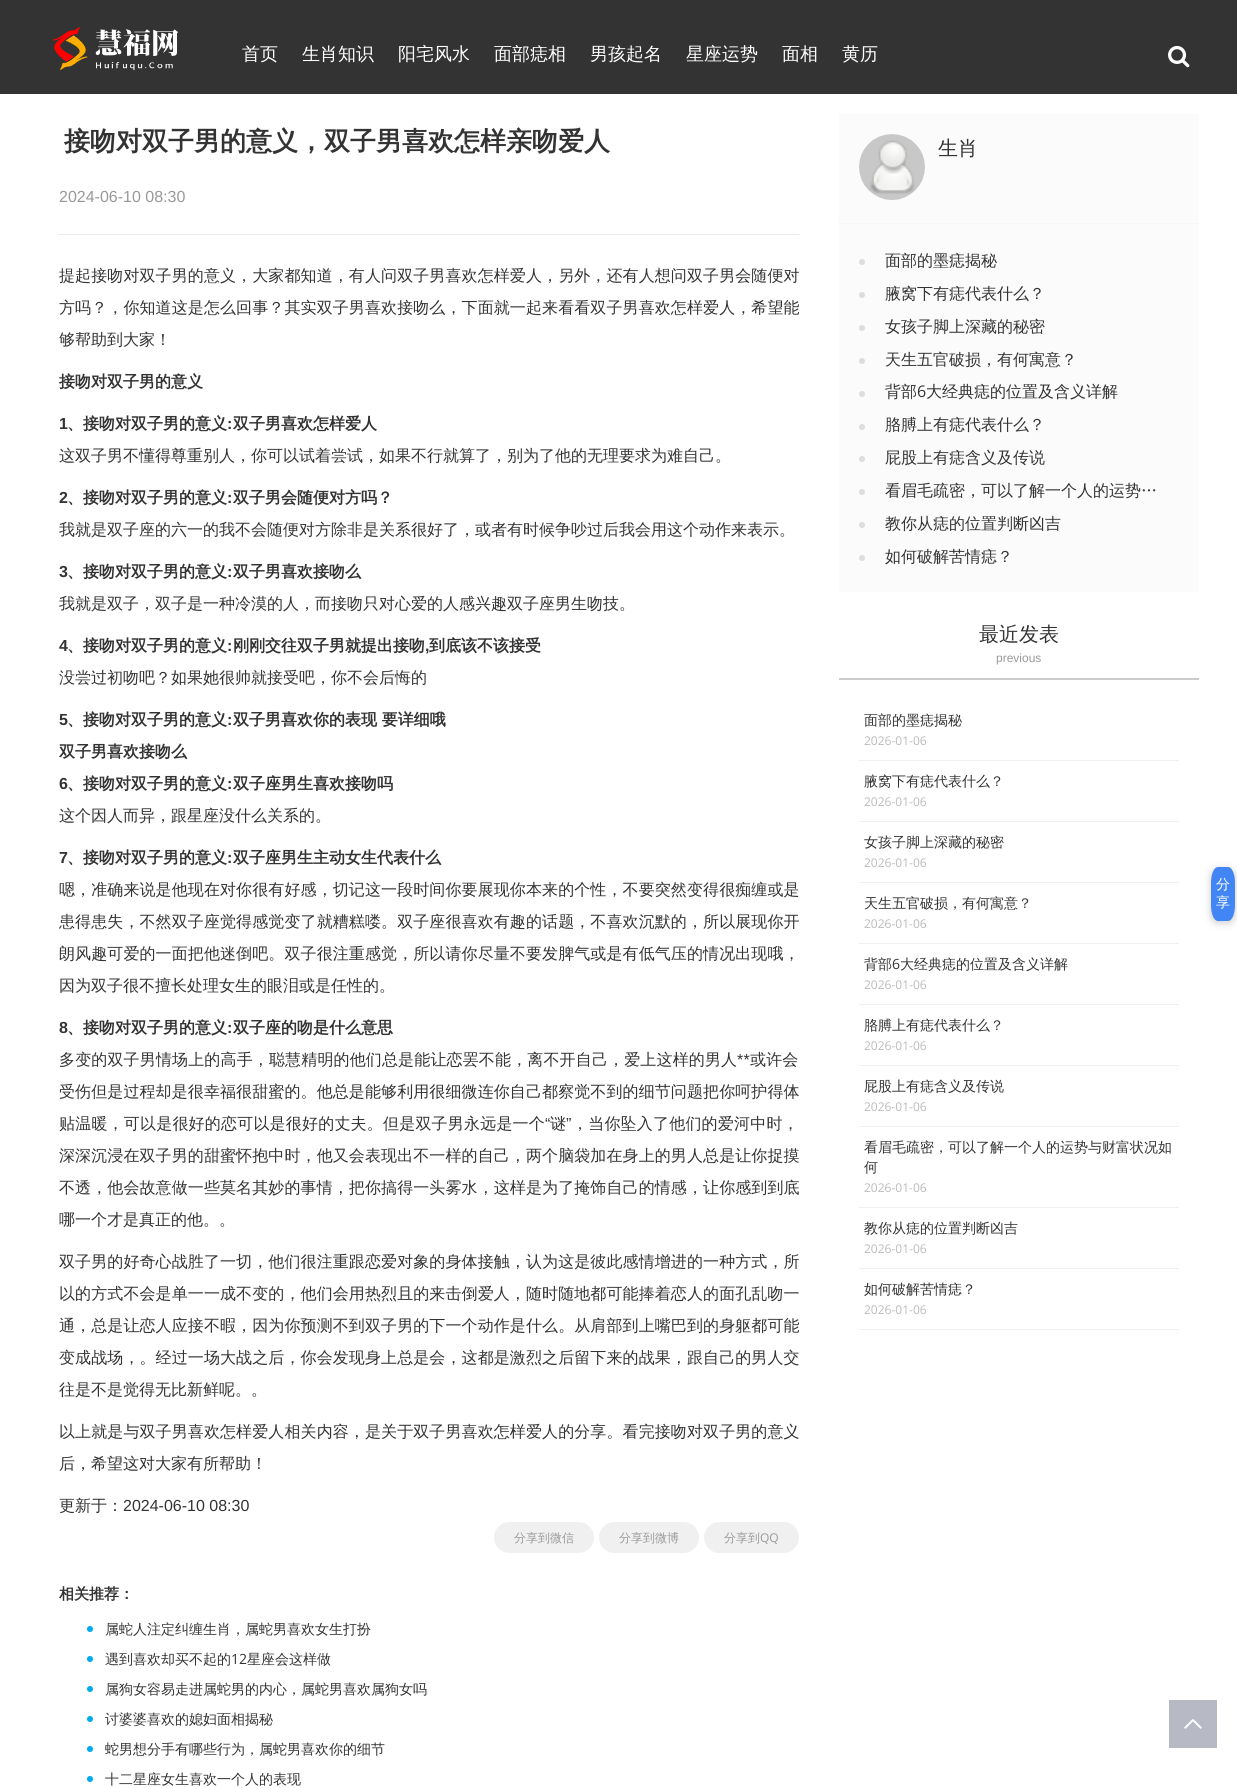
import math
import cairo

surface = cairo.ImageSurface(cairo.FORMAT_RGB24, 1237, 1788)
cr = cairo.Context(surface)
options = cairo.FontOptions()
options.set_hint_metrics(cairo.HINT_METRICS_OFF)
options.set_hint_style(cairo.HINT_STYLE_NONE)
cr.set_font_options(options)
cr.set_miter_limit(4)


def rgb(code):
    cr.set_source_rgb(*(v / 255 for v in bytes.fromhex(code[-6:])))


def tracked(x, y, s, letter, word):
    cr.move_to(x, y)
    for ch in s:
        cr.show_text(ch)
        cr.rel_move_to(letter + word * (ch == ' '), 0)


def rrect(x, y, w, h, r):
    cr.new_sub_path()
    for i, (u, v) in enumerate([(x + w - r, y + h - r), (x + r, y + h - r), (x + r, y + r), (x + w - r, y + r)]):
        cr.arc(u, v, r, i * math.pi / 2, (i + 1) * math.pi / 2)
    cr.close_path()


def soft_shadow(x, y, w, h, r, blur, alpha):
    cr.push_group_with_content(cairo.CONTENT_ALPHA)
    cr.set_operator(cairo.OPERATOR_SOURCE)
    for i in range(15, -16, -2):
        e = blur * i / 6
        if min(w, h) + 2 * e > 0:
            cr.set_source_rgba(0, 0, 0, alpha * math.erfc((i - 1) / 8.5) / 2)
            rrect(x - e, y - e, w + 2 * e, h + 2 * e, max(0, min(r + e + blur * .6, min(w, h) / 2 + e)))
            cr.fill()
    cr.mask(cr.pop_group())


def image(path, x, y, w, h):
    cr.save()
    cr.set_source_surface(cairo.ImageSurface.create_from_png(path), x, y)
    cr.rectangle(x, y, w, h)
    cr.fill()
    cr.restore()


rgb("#ffffff")
cr.paint()
rgb("#333333")
cr.rectangle(0, 0, 1237, 94)
cr.fill()
image("img/1.png", 52, 27, 127, 44)
image("img/2.png", 1168, 45, 22, 23)
rgb("#eaeaea")
cr.rectangle(59, 234, 740, 1)
cr.fill()
rgb("#f0f0f0")
rrect(494, 1522, 100, 31, 15.5)
cr.fill()
rrect(599, 1522, 100, 31, 15.5)
cr.fill()
rrect(704, 1522, 95, 31, 15.5)
cr.fill()
rgb("#00aaee")
cr.arc(90, 1629, 3, 0, 2 * math.pi)
cr.fill()
cr.arc(90, 1659, 3, 0, 2 * math.pi)
cr.fill()
cr.arc(90, 1689, 3, 0, 2 * math.pi)
cr.fill()
cr.arc(90, 1719, 3, 0, 2 * math.pi)
cr.fill()
cr.arc(90, 1749, 3, 0, 2 * math.pi)
cr.fill()
cr.arc(90, 1779, 3, 0, 2 * math.pi)
cr.fill()
rgb("#fbfbfb")
cr.rectangle(839, 114, 360, 478)
cr.fill()
rgb("#f6f6f6")
cr.rectangle(839, 223, 360, 1)
cr.fill()
image("img/3.png", 859, 134, 66, 66)
rgb("#dddddd")
cr.arc(862, 262, 3, 0, 2 * math.pi)
cr.fill()
cr.arc(862, 295, 3, 0, 2 * math.pi)
cr.fill()
cr.arc(862, 328, 3, 0, 2 * math.pi)
cr.fill()
cr.arc(862, 361, 3, 0, 2 * math.pi)
cr.fill()
cr.arc(862, 394, 3, 0, 2 * math.pi)
cr.fill()
cr.arc(862, 427, 3, 0, 2 * math.pi)
cr.fill()
cr.arc(862, 459, 3, 0, 2 * math.pi)
cr.fill()
cr.arc(862, 492, 3, 0, 2 * math.pi)
cr.fill()
cr.arc(862, 525, 3, 0, 2 * math.pi)
cr.fill()
cr.arc(862, 558, 3, 0, 2 * math.pi)
cr.fill()
for x, y, w, h, color in [
    (839, 678, 360, 2, "#cccccc"),
    (859, 760, 320, 1, "#f0f0f0"),
    (859, 821, 320, 1, "#f0f0f0"),
    (859, 882, 320, 1, "#f0f0f0"),
    (859, 943, 320, 1, "#f0f0f0"),
    (859, 1004, 320, 1, "#f0f0f0"),
    (859, 1065, 320, 1, "#f0f0f0"),
    (859, 1126, 320, 1, "#f0f0f0"),
    (859, 1207, 320, 1, "#f0f0f0"),
    (859, 1268, 320, 1, "#f0f0f0"),
    (859, 1329, 320, 1, "#f0f0f0"),
]:
    rgb(color)
    cr.rectangle(x, y, w, h)
    cr.fill()
rgb("#000000")
soft_shadow(1211, 869, 24, 54, 7, 4, 0.2)
rgb("#4285f4")
cr.new_path()
cr.move_to(1218, 867)
cr.line_to(1228, 867)
cr.curve_to(1232, 867, 1235, 874, 1235, 883)
cr.line_to(1235, 905)
cr.curve_to(1235, 914, 1232, 921, 1228, 921)
cr.line_to(1218, 921)
cr.curve_to(1214, 921, 1211, 914, 1211, 905)
cr.line_to(1211, 883)
cr.curve_to(1211, 874, 1214, 867, 1218, 867)
cr.close_path()
cr.fill()
rgb("#b7bac5")
cr.rectangle(1169, 1700, 48, 48)
cr.fill()
image("img/4.png", 1184, 1719, 18, 10)
cr.select_font_face("WenQuanYi Zen Hei Medium")
cr.set_font_size(18)
rgb("#ffffff")
for x, y, s in [
    (242, 60, "首页"),
    (302, 60, "生肖知识"),
    (398, 60, "阳宅风水"),
    (494, 60, "面部痣相"),
    (590, 60, "男孩起名"),
    (686, 60, "星座运势"),
    (782, 60, "面相"),
    (842, 60, "黄历"),
]:
    cr.move_to(x, y)
    cr.show_text(s)
cr.select_font_face("WenQuanYi Zen Hei", cairo.FONT_SLANT_NORMAL, cairo.FONT_WEIGHT_BOLD)
cr.set_font_size(26)
rgb("#333333")
cr.move_to(64, 150)
cr.show_text("接吻对双子男的意义，双子男喜欢怎样亲吻爱人")
cr.select_font_face("Liberation Sans")
cr.set_font_size(16)
rgb("#999999")
cr.move_to(59, 202)
cr.show_text("2024-06-10 08:30")
cr.select_font_face("WenQuanYi Zen Hei Medium")
rgb("#333333")
tracked(59, 281, "提起接吻对双子男的意义，大家都知道，有人问双子男喜欢怎样爱人，另外，还有人想问双子男会随便对", 0.1, 0)
tracked(59, 313, "方吗？，你知道这是怎么回事？其实双子男喜欢接吻么，下面就一起来看看双子男喜欢怎样爱人，希望能", 0.1, 0)
cr.move_to(59, 345)
cr.show_text("够帮助到大家！")
cr.select_font_face("WenQuanYi Zen Hei", cairo.FONT_SLANT_NORMAL, cairo.FONT_WEIGHT_BOLD)
cr.move_to(59, 387)
cr.show_text("接吻对双子男的意义")
cr.select_font_face("Liberation Sans", cairo.FONT_SLANT_NORMAL, cairo.FONT_WEIGHT_BOLD)
cr.move_to(59, 429)
cr.show_text("1")
cr.select_font_face("WenQuanYi Zen Hei", cairo.FONT_SLANT_NORMAL, cairo.FONT_WEIGHT_BOLD)
cr.move_to(67, 429)
cr.show_text("、接吻对双子男的意义")
cr.select_font_face("Liberation Sans", cairo.FONT_SLANT_NORMAL, cairo.FONT_WEIGHT_BOLD)
cr.move_to(227, 429)
cr.show_text(":")
cr.select_font_face("WenQuanYi Zen Hei", cairo.FONT_SLANT_NORMAL, cairo.FONT_WEIGHT_BOLD)
cr.move_to(233, 429)
cr.show_text("双子男喜欢怎样爱人")
cr.select_font_face("WenQuanYi Zen Hei Medium")
cr.move_to(59, 461)
cr.show_text("这双子男不懂得尊重别人，你可以试着尝试，如果不行就算了，别为了他的无理要求为难自己。")
cr.select_font_face("Liberation Sans", cairo.FONT_SLANT_NORMAL, cairo.FONT_WEIGHT_BOLD)
cr.move_to(59, 503)
cr.show_text("2")
cr.select_font_face("WenQuanYi Zen Hei", cairo.FONT_SLANT_NORMAL, cairo.FONT_WEIGHT_BOLD)
cr.move_to(67, 503)
cr.show_text("、接吻对双子男的意义")
cr.select_font_face("Liberation Sans", cairo.FONT_SLANT_NORMAL, cairo.FONT_WEIGHT_BOLD)
cr.move_to(227, 503)
cr.show_text(":")
cr.select_font_face("WenQuanYi Zen Hei", cairo.FONT_SLANT_NORMAL, cairo.FONT_WEIGHT_BOLD)
cr.move_to(233, 503)
cr.show_text("双子男会随便对方吗？")
cr.select_font_face("WenQuanYi Zen Hei Medium")
cr.move_to(59, 535)
cr.show_text("我就是双子座的六一的我不会随便对方除非是关系很好了，或者有时候争吵过后我会用这个动作来表示。")
cr.select_font_face("Liberation Sans", cairo.FONT_SLANT_NORMAL, cairo.FONT_WEIGHT_BOLD)
cr.move_to(59, 577)
cr.show_text("3")
cr.select_font_face("WenQuanYi Zen Hei", cairo.FONT_SLANT_NORMAL, cairo.FONT_WEIGHT_BOLD)
cr.move_to(67, 577)
cr.show_text("、接吻对双子男的意义")
cr.select_font_face("Liberation Sans", cairo.FONT_SLANT_NORMAL, cairo.FONT_WEIGHT_BOLD)
cr.move_to(227, 577)
cr.show_text(":")
cr.select_font_face("WenQuanYi Zen Hei", cairo.FONT_SLANT_NORMAL, cairo.FONT_WEIGHT_BOLD)
cr.move_to(233, 577)
cr.show_text("双子男喜欢接吻么")
cr.select_font_face("WenQuanYi Zen Hei Medium")
cr.move_to(59, 609)
cr.show_text("我就是双子，双子是一种冷漠的人，而接吻只对心爱的人感兴趣双子座男生吻技。")
cr.select_font_face("Liberation Sans", cairo.FONT_SLANT_NORMAL, cairo.FONT_WEIGHT_BOLD)
cr.move_to(59, 651)
cr.show_text("4")
cr.select_font_face("WenQuanYi Zen Hei", cairo.FONT_SLANT_NORMAL, cairo.FONT_WEIGHT_BOLD)
cr.move_to(67, 651)
cr.show_text("、接吻对双子男的意义")
cr.select_font_face("Liberation Sans", cairo.FONT_SLANT_NORMAL, cairo.FONT_WEIGHT_BOLD)
cr.move_to(227, 651)
cr.show_text(":")
cr.select_font_face("WenQuanYi Zen Hei", cairo.FONT_SLANT_NORMAL, cairo.FONT_WEIGHT_BOLD)
cr.move_to(233, 651)
cr.show_text("刚刚交往双子男就提出接吻")
cr.select_font_face("Liberation Sans", cairo.FONT_SLANT_NORMAL, cairo.FONT_WEIGHT_BOLD)
cr.move_to(425, 651)
cr.show_text(",")
cr.select_font_face("WenQuanYi Zen Hei", cairo.FONT_SLANT_NORMAL, cairo.FONT_WEIGHT_BOLD)
cr.move_to(429, 651)
cr.show_text("到底该不该接受")
cr.select_font_face("WenQuanYi Zen Hei Medium")
cr.move_to(59, 683)
cr.show_text("没尝过初吻吧？如果她很帅就接受吧，你不会后悔的")
cr.select_font_face("Liberation Sans", cairo.FONT_SLANT_NORMAL, cairo.FONT_WEIGHT_BOLD)
cr.move_to(59, 725)
cr.show_text("5")
cr.select_font_face("WenQuanYi Zen Hei", cairo.FONT_SLANT_NORMAL, cairo.FONT_WEIGHT_BOLD)
cr.move_to(67, 725)
cr.show_text("、接吻对双子男的意义")
cr.select_font_face("Liberation Sans", cairo.FONT_SLANT_NORMAL, cairo.FONT_WEIGHT_BOLD)
cr.move_to(227, 725)
cr.show_text(":")
cr.select_font_face("WenQuanYi Zen Hei", cairo.FONT_SLANT_NORMAL, cairo.FONT_WEIGHT_BOLD)
cr.move_to(233, 725)
cr.show_text("双子男喜欢你的表现 要详细哦")
cr.move_to(59, 757)
cr.show_text("双子男喜欢接吻么")
cr.select_font_face("Liberation Sans", cairo.FONT_SLANT_NORMAL, cairo.FONT_WEIGHT_BOLD)
cr.move_to(59, 789)
cr.show_text("6")
cr.select_font_face("WenQuanYi Zen Hei", cairo.FONT_SLANT_NORMAL, cairo.FONT_WEIGHT_BOLD)
cr.move_to(67, 789)
cr.show_text("、接吻对双子男的意义")
cr.select_font_face("Liberation Sans", cairo.FONT_SLANT_NORMAL, cairo.FONT_WEIGHT_BOLD)
cr.move_to(227, 789)
cr.show_text(":")
cr.select_font_face("WenQuanYi Zen Hei", cairo.FONT_SLANT_NORMAL, cairo.FONT_WEIGHT_BOLD)
cr.move_to(233, 789)
cr.show_text("双子座男生喜欢接吻吗")
cr.select_font_face("WenQuanYi Zen Hei Medium")
cr.move_to(59, 821)
cr.show_text("这个因人而异，跟星座没什么关系的。")
cr.select_font_face("Liberation Sans", cairo.FONT_SLANT_NORMAL, cairo.FONT_WEIGHT_BOLD)
cr.move_to(59, 863)
cr.show_text("7")
cr.select_font_face("WenQuanYi Zen Hei", cairo.FONT_SLANT_NORMAL, cairo.FONT_WEIGHT_BOLD)
cr.move_to(67, 863)
cr.show_text("、接吻对双子男的意义")
cr.select_font_face("Liberation Sans", cairo.FONT_SLANT_NORMAL, cairo.FONT_WEIGHT_BOLD)
cr.move_to(227, 863)
cr.show_text(":")
cr.select_font_face("WenQuanYi Zen Hei", cairo.FONT_SLANT_NORMAL, cairo.FONT_WEIGHT_BOLD)
cr.move_to(233, 863)
cr.show_text("双子座男生主动女生代表什么")
cr.select_font_face("WenQuanYi Zen Hei Medium")
for x, y, s in [
    (59, 895, "嗯，准确来说是他现在对你很有好感，切记这一段时间你要展现你本来的个性，不要突然变得很痴缠或是"),
    (59, 927, "患得患失，不然双子座觉得感觉变了就糟糕喽。双子座很喜欢有趣的话题，不喜欢沉默的，所以展现你开"),
    (59, 959, "朗风趣可爱的一面把他迷倒吧。双子很注重感觉，所以请你尽量不要发脾气或是有低气压的情况出现哦，"),
]:
    tracked(x, y, s, 0.1, 0)
cr.move_to(59, 991)
cr.show_text("因为双子很不擅长处理女生的眼泪或是任性的。")
cr.select_font_face("Liberation Sans", cairo.FONT_SLANT_NORMAL, cairo.FONT_WEIGHT_BOLD)
cr.move_to(59, 1033)
cr.show_text("8")
cr.select_font_face("WenQuanYi Zen Hei", cairo.FONT_SLANT_NORMAL, cairo.FONT_WEIGHT_BOLD)
cr.move_to(67, 1033)
cr.show_text("、接吻对双子男的意义")
cr.select_font_face("Liberation Sans", cairo.FONT_SLANT_NORMAL, cairo.FONT_WEIGHT_BOLD)
cr.move_to(227, 1033)
cr.show_text(":")
cr.select_font_face("WenQuanYi Zen Hei", cairo.FONT_SLANT_NORMAL, cairo.FONT_WEIGHT_BOLD)
cr.move_to(233, 1033)
cr.show_text("双子座的吻是什么意思")
cr.select_font_face("WenQuanYi Zen Hei Medium")
tracked(59, 1065, "多变的双子男情场上的高手，聪慧精明的他们总是能让恋罢不能，离不开自己，爱上这样的男人", 0.15, 0)
cr.select_font_face("Liberation Sans")
tracked(737, 1065, "**", 0.15, 0)
cr.select_font_face("WenQuanYi Zen Hei Medium")
tracked(750, 1065, "或许会", 0.15, 0)
tracked(59, 1097, "受伤但是过程却是很幸福很甜蜜的。他总是能够利用很细微连你自己都察觉不到的细节问题把你呵护得体", 0.1, 0)
tracked(59, 1129, "贴温暖，可以是很好的恋可以是很好的丈夫。但是双子男永远是一个", 0.2, 0)
cr.select_font_face("Liberation Sans")
tracked(545, 1129, "“", 0.2, 0)
cr.select_font_face("WenQuanYi Zen Hei Medium")
tracked(550, 1129, "谜", 0.2, 0)
cr.select_font_face("Liberation Sans")
tracked(566, 1129, "”", 0.2, 0)
cr.select_font_face("WenQuanYi Zen Hei Medium")
tracked(572, 1129, "，当你坠入了他们的爱河中时，", 0.2, 0)
tracked(59, 1161, "深深沉浸在双子男的甜蜜怀抱中时，他又会表现出不一样的自己，两个脑袋加在身上的男人总是让你捉摸", 0.1, 0)
tracked(59, 1193, "不透，他会故意做一些莫名其妙的事情，把你搞得一头雾水，这样是为了掩饰自己的情感，让你感到到底", 0.1, 0)
cr.move_to(59, 1225)
cr.show_text("哪一个才是真正的他。。")
for x, y, s in [
    (59, 1267, "双子男的好奇心战胜了一切，他们很注重跟恋爱对象的身体接触，认为这是彼此感情增进的一种方式，所"),
    (59, 1299, "以的方式不会是单一一成不变的，他们会用热烈且的来击倒爱人，随时随地都可能捧着恋人的面孔乱吻一"),
    (59, 1331, "通，总是让恋人应接不暇，因为你预测不到双子男的下一个动作是什么。从肩部到上嘴巴到的身躯都可能"),
    (59, 1363, "变成战场，。经过一场大战之后，你会发现身上总是会，这都是激烈之后留下来的战果，跟自己的男人交"),
]:
    tracked(x, y, s, 0.1, 0)
cr.move_to(59, 1395)
cr.show_text("往是不是觉得无比新鲜呢。。")
tracked(59, 1437, "以上就是与双子男喜欢怎样爱人相关内容，是关于双子男喜欢怎样爱人的分享。看完接吻对双子男的意义", 0.1, 0)
cr.move_to(59, 1469)
cr.show_text("后，希望这对大家有所帮助！")
cr.move_to(59, 1511)
cr.show_text("更新于：")
cr.select_font_face("Liberation Sans")
cr.move_to(123, 1511)
cr.show_text("2024-06-10 08:30")
cr.select_font_face("WenQuanYi Zen Hei Medium")
cr.set_font_size(12)
rgb("#999999")
for x, y, s in [
    (514, 1542, "分享到微信"),
    (619, 1542, "分享到微博"),
    (724, 1542, "分享到"),
]:
    cr.move_to(x, y)
    cr.show_text(s)
cr.select_font_face("Open Sans")
cr.move_to(760, 1542)
cr.show_text("QQ")
cr.select_font_face("WenQuanYi Zen Hei", cairo.FONT_SLANT_NORMAL, cairo.FONT_WEIGHT_BOLD)
cr.set_font_size(15)
rgb("#333333")
cr.move_to(59, 1599)
cr.show_text("相关推荐：")
cr.select_font_face("WenQuanYi Zen Hei Medium")
cr.set_font_size(14)
cr.move_to(105, 1634)
cr.show_text("属蛇人注定纠缠生肖，属蛇男喜欢女生打扮")
cr.move_to(105, 1664)
cr.show_text("遇到喜欢却买不起的")
cr.select_font_face("Open Sans")
cr.move_to(231, 1664)
cr.show_text("12")
cr.select_font_face("WenQuanYi Zen Hei Medium")
for x, y, s in [
    (247, 1664, "星座会这样做"),
    (105, 1694, "属狗女容易走进属蛇男的内心，属蛇男喜欢属狗女吗"),
    (105, 1724, "讨婆婆喜欢的媳妇面相揭秘"),
    (105, 1754, "蛇男想分手有哪些行为，属蛇男喜欢你的细节"),
    (105, 1784, "十二星座女生喜欢一个人的表现"),
]:
    cr.move_to(x, y)
    cr.show_text(s)
cr.set_font_size(20)
cr.move_to(938, 155)
cr.show_text("生肖")
cr.set_font_size(16)
for x, y, s in [
    (885, 266, "面部的墨痣揭秘"),
    (885, 299, "腋窝下有痣代表什么？"),
    (885, 332, "女孩子脚上深藏的秘密"),
    (885, 365, "天生五官破损，有何寓意？"),
    (885, 397, "背部"),
]:
    cr.move_to(x, y)
    cr.show_text(s)
cr.select_font_face("Open Sans")
cr.move_to(917, 397)
cr.show_text("6")
cr.select_font_face("WenQuanYi Zen Hei Medium")
for x, y, s in [
    (926, 397, "大经典痣的位置及含义详解"),
    (885, 430, "胳膊上有痣代表什么？"),
    (885, 463, "屁股上有痣含义及传说"),
    (885, 496, "看眉毛疏密，可以了解一个人的运势…"),
    (885, 529, "教你从痣的位置判断凶吉"),
    (885, 562, "如何破解苦情痣？"),
]:
    cr.move_to(x, y)
    cr.show_text(s)
cr.set_font_size(20)
cr.move_to(979, 641)
cr.show_text("最近发表")
cr.select_font_face("Liberation Sans")
cr.set_font_size(12)
rgb("#999999")
cr.move_to(996, 662)
cr.show_text("previous")
cr.select_font_face("WenQuanYi Zen Hei Medium")
cr.set_font_size(14)
rgb("#333333")
cr.move_to(864, 725)
cr.show_text("面部的墨痣揭秘")
cr.select_font_face("Open Sans")
cr.set_font_size(12)
rgb("#bbbbbb")
cr.move_to(864, 745)
cr.show_text("2026-01-06")
cr.select_font_face("WenQuanYi Zen Hei Medium")
cr.set_font_size(14)
rgb("#333333")
cr.move_to(864, 786)
cr.show_text("腋窝下有痣代表什么？")
cr.select_font_face("Open Sans")
cr.set_font_size(12)
rgb("#bbbbbb")
cr.move_to(864, 806)
cr.show_text("2026-01-06")
cr.select_font_face("WenQuanYi Zen Hei Medium")
cr.set_font_size(14)
rgb("#333333")
cr.move_to(864, 847)
cr.show_text("女孩子脚上深藏的秘密")
cr.select_font_face("Open Sans")
cr.set_font_size(12)
rgb("#bbbbbb")
cr.move_to(864, 867)
cr.show_text("2026-01-06")
cr.select_font_face("WenQuanYi Zen Hei Medium")
cr.set_font_size(14)
rgb("#333333")
cr.move_to(864, 908)
cr.show_text("天生五官破损，有何寓意？")
cr.select_font_face("Open Sans")
cr.set_font_size(12)
rgb("#bbbbbb")
cr.move_to(864, 928)
cr.show_text("2026-01-06")
cr.select_font_face("WenQuanYi Zen Hei Medium")
cr.set_font_size(14)
rgb("#333333")
cr.move_to(864, 969)
cr.show_text("背部")
cr.select_font_face("Open Sans")
cr.move_to(892, 969)
cr.show_text("6")
cr.select_font_face("WenQuanYi Zen Hei Medium")
cr.move_to(900, 969)
cr.show_text("大经典痣的位置及含义详解")
cr.select_font_face("Open Sans")
cr.set_font_size(12)
rgb("#bbbbbb")
cr.move_to(864, 989)
cr.show_text("2026-01-06")
cr.select_font_face("WenQuanYi Zen Hei Medium")
cr.set_font_size(14)
rgb("#333333")
cr.move_to(864, 1030)
cr.show_text("胳膊上有痣代表什么？")
cr.select_font_face("Open Sans")
cr.set_font_size(12)
rgb("#bbbbbb")
cr.move_to(864, 1050)
cr.show_text("2026-01-06")
cr.select_font_face("WenQuanYi Zen Hei Medium")
cr.set_font_size(14)
rgb("#333333")
cr.move_to(864, 1091)
cr.show_text("屁股上有痣含义及传说")
cr.select_font_face("Open Sans")
cr.set_font_size(12)
rgb("#bbbbbb")
cr.move_to(864, 1111)
cr.show_text("2026-01-06")
cr.select_font_face("WenQuanYi Zen Hei Medium")
cr.set_font_size(14)
rgb("#333333")
cr.move_to(864, 1152)
cr.show_text("看眉毛疏密，可以了解一个人的运势与财富状况如")
cr.move_to(864, 1172)
cr.show_text("何")
cr.select_font_face("Open Sans")
cr.set_font_size(12)
rgb("#bbbbbb")
cr.move_to(864, 1192)
cr.show_text("2026-01-06")
cr.select_font_face("WenQuanYi Zen Hei Medium")
cr.set_font_size(14)
rgb("#333333")
cr.move_to(864, 1233)
cr.show_text("教你从痣的位置判断凶吉")
cr.select_font_face("Open Sans")
cr.set_font_size(12)
rgb("#bbbbbb")
cr.move_to(864, 1253)
cr.show_text("2026-01-06")
cr.select_font_face("WenQuanYi Zen Hei Medium")
cr.set_font_size(14)
rgb("#333333")
cr.move_to(864, 1294)
cr.show_text("如何破解苦情痣？")
cr.select_font_face("Open Sans")
cr.set_font_size(12)
rgb("#bbbbbb")
cr.move_to(864, 1314)
cr.show_text("2026-01-06")
cr.select_font_face("WenQuanYi Zen Hei Medium")
cr.set_font_size(14)
rgb("#ffffff")
cr.move_to(1216, 889)
cr.show_text("分")
cr.move_to(1216, 907)
cr.show_text("享")
surface.write_to_png("page.png")
